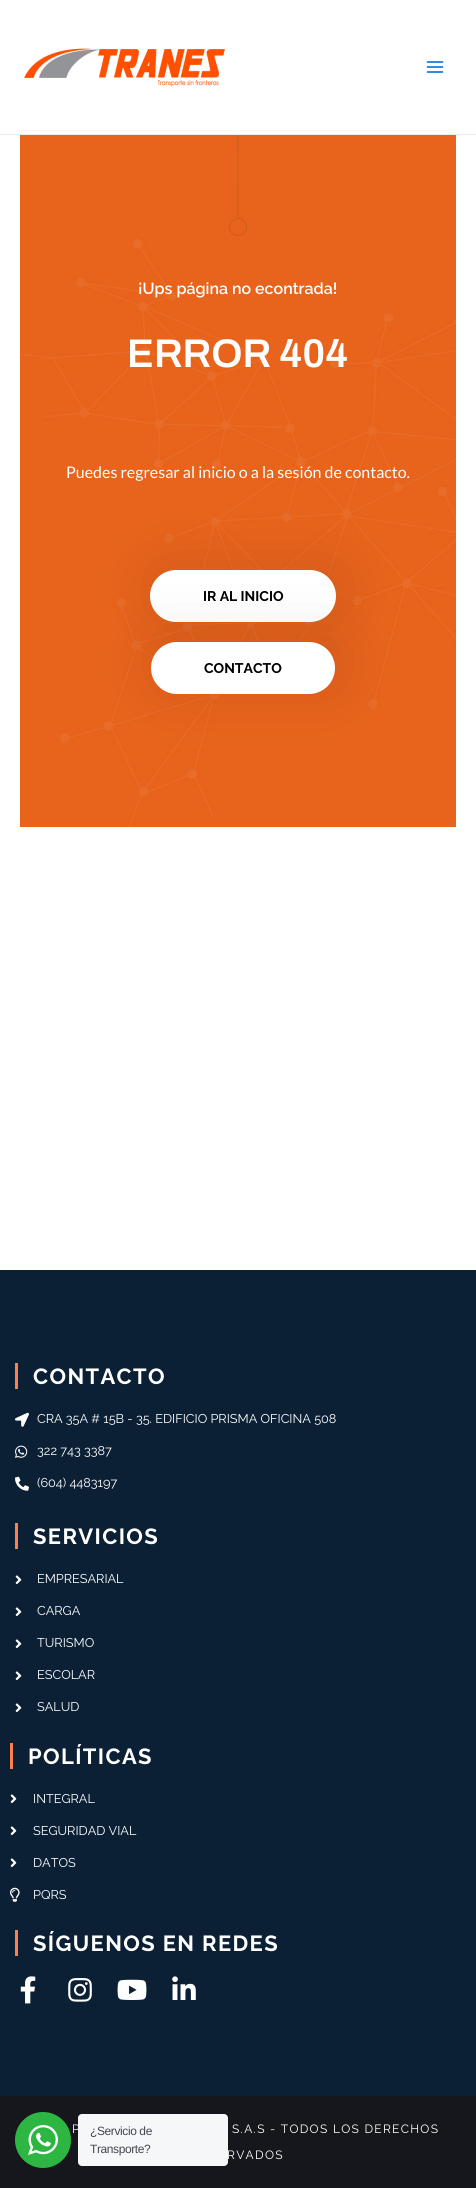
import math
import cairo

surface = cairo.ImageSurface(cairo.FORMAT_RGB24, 476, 2188)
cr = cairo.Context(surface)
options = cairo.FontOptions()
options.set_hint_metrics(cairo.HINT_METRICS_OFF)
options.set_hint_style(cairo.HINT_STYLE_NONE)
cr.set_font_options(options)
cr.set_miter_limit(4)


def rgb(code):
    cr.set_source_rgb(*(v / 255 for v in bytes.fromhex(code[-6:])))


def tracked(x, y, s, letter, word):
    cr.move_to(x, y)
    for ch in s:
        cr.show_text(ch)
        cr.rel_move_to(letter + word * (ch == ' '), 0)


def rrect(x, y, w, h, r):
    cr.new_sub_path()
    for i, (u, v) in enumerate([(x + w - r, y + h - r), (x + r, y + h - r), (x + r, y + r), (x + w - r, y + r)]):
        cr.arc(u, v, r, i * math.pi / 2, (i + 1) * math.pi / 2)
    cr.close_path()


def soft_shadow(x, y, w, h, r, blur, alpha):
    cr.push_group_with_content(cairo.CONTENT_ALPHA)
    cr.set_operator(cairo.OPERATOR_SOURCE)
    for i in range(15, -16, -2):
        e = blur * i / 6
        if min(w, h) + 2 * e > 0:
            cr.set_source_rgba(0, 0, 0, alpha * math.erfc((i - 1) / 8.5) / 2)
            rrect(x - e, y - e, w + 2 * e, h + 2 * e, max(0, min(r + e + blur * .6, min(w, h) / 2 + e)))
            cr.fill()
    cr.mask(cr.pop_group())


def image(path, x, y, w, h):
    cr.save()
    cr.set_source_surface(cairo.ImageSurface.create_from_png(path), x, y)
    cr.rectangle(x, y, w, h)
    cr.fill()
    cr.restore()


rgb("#ffffff")
cr.paint()
rgb("#eaeaea")
cr.rectangle(0, 134, 476, 1)
cr.fill()
image("img/1.png", 24, 48, 201, 39)
image("img/2.png", 426, 61, 18, 12)
image("img/3.png", 20, 135, 436, 692)
image("img/4.png", 229, 135, 18, 101)
rgb("#000000")
soft_shadow(155, 565, 186, 52, 26, 30, 0.1)
rgb("#ffffff")
rrect(151.5, 571.5, 183, 49, 24.5)
cr.fill_preserve()
cr.set_line_width(3)
cr.stroke()
rgb("#000000")
soft_shadow(156, 637, 184, 52, 26, 30, 0.1)
rgb("#ffffff")
rrect(152.5, 643.5, 181, 49, 24.5)
cr.fill_preserve()
cr.stroke()
rgb("#0b2035")
cr.rectangle(0, 1270, 476, 826)
cr.fill()
rgb("#ff7f50")
cr.rectangle(15, 1363, 3, 26)
cr.fill()
image("img/5.png", 15, 1412, 14, 15)
image("img/6.png", 15, 1445, 13, 13)
image("img/7.png", 15, 1476, 14, 15)
cr.rectangle(15, 1523, 3, 26)
cr.fill()
image("img/8.png", 15, 1575, 7, 10)
image("img/8.png", 15, 1607, 7, 10)
image("img/8.png", 15, 1639, 7, 10)
image("img/8.png", 15, 1671, 7, 10)
image("img/8.png", 15, 1703, 7, 10)
cr.rectangle(10, 1743, 3, 26)
cr.fill()
image("img/8.png", 10, 1794, 7, 10)
image("img/8.png", 10, 1826, 7, 10)
image("img/8.png", 10, 1858, 7, 10)
image("img/9.png", 10, 1887, 10, 15)
cr.rectangle(15, 1930, 3, 26)
cr.fill()
image("img/10.png", 20, 1976, 16, 28)
image("img/11.png", 68, 1978, 24, 24)
image("img/12.png", 117, 1979, 30, 21)
image("img/13.png", 172, 1976, 24, 24)
rgb("#15171c")
cr.rectangle(0, 2096, 476, 92)
cr.fill()
rgb("#2db742")
cr.arc(43, 2140, 28, 0, 2 * math.pi)
cr.fill()
image("img/14.png", 28, 2125, 30, 30)
cr.select_font_face("Raleway SemiBold")
cr.set_font_size(16)
rgb("#ffffff")
cr.move_to(138, 294)
cr.show_text("¡Ups página no econtrada!")
cr.select_font_face("Archivo SemiBold")
cr.set_font_size(40)
cr.move_to(127, 367)
cr.show_text("ERROR 404")
cr.select_font_face("Lato")
cr.set_font_size(16)
cr.move_to(66, 478)
cr.show_text("Puedes regresar al inicio o a la sesión de contacto.")
cr.select_font_face("Raleway", cairo.FONT_SLANT_NORMAL, cairo.FONT_WEIGHT_BOLD)
cr.set_font_size(14)
rgb("#000000")
cr.move_to(203, 601)
cr.show_text("IR AL INICIO")
cr.move_to(204, 673)
cr.show_text("CONTACTO")
cr.set_font_size(21.9)
rgb("#ffffff")
tracked(33, 1384, "CONTACTO", 1.4, 0)
cr.select_font_face("Raleway")
cr.set_font_size(12.7)
for x, y, s in [
    (37, 1423, "CRA 35A # 15B - 35. EDIFICIO PRISMA OFICINA 508"),
    (37, 1455, "322 743 3387"),
    (37, 1487, "(604) 4483197"),
]:
    cr.move_to(x, y)
    cr.show_text(s)
cr.select_font_face("Raleway", cairo.FONT_SLANT_NORMAL, cairo.FONT_WEIGHT_BOLD)
cr.set_font_size(21.9)
tracked(33, 1544, "SERVICIOS", 1.4, 0)
cr.select_font_face("Raleway")
cr.set_font_size(12.7)
for x, y, s in [
    (37, 1583, "EMPRESARIAL"),
    (37, 1615, "CARGA"),
    (37, 1647, "TURISMO"),
    (37, 1679, "ESCOLAR"),
    (37, 1711, "SALUD"),
]:
    cr.move_to(x, y)
    cr.show_text(s)
cr.select_font_face("Raleway", cairo.FONT_SLANT_NORMAL, cairo.FONT_WEIGHT_BOLD)
cr.set_font_size(21.9)
tracked(28, 1764, "POLÍTICAS", 1.4, 0)
cr.select_font_face("Raleway")
cr.set_font_size(12.7)
for x, y, s in [
    (33, 1803, "INTEGRAL"),
    (33, 1835, "SEGURIDAD VIAL"),
    (33, 1867, "DATOS"),
    (33, 1899, "PQRS"),
]:
    cr.move_to(x, y)
    cr.show_text(s)
cr.select_font_face("Raleway", cairo.FONT_SLANT_NORMAL, cairo.FONT_WEIGHT_BOLD)
cr.set_font_size(21.9)
tracked(33, 1951, "SÍGUENOS EN REDES", 1.4, 0)
cr.select_font_face("Raleway")
cr.set_font_size(12)
for x, y, s in [
    (72, 2133, "P"),
    (232, 2133, "S.A.S - TODOS LOS DERECHOS"),
    (227, 2159, "RVADOS"),
]:
    tracked(x, y, s, 1.3, 0)
rgb("#f5f7f9")
rrect(78, 2114, 150, 52, 4)
cr.fill()
cr.select_font_face("Liberation Sans")
rgb("#43474e")
tracked(90, 2135, "¿Servicio de", -0.4, 0)
tracked(90, 2153, "Transporte?", -0.4, 0)
surface.write_to_png("page.png")
